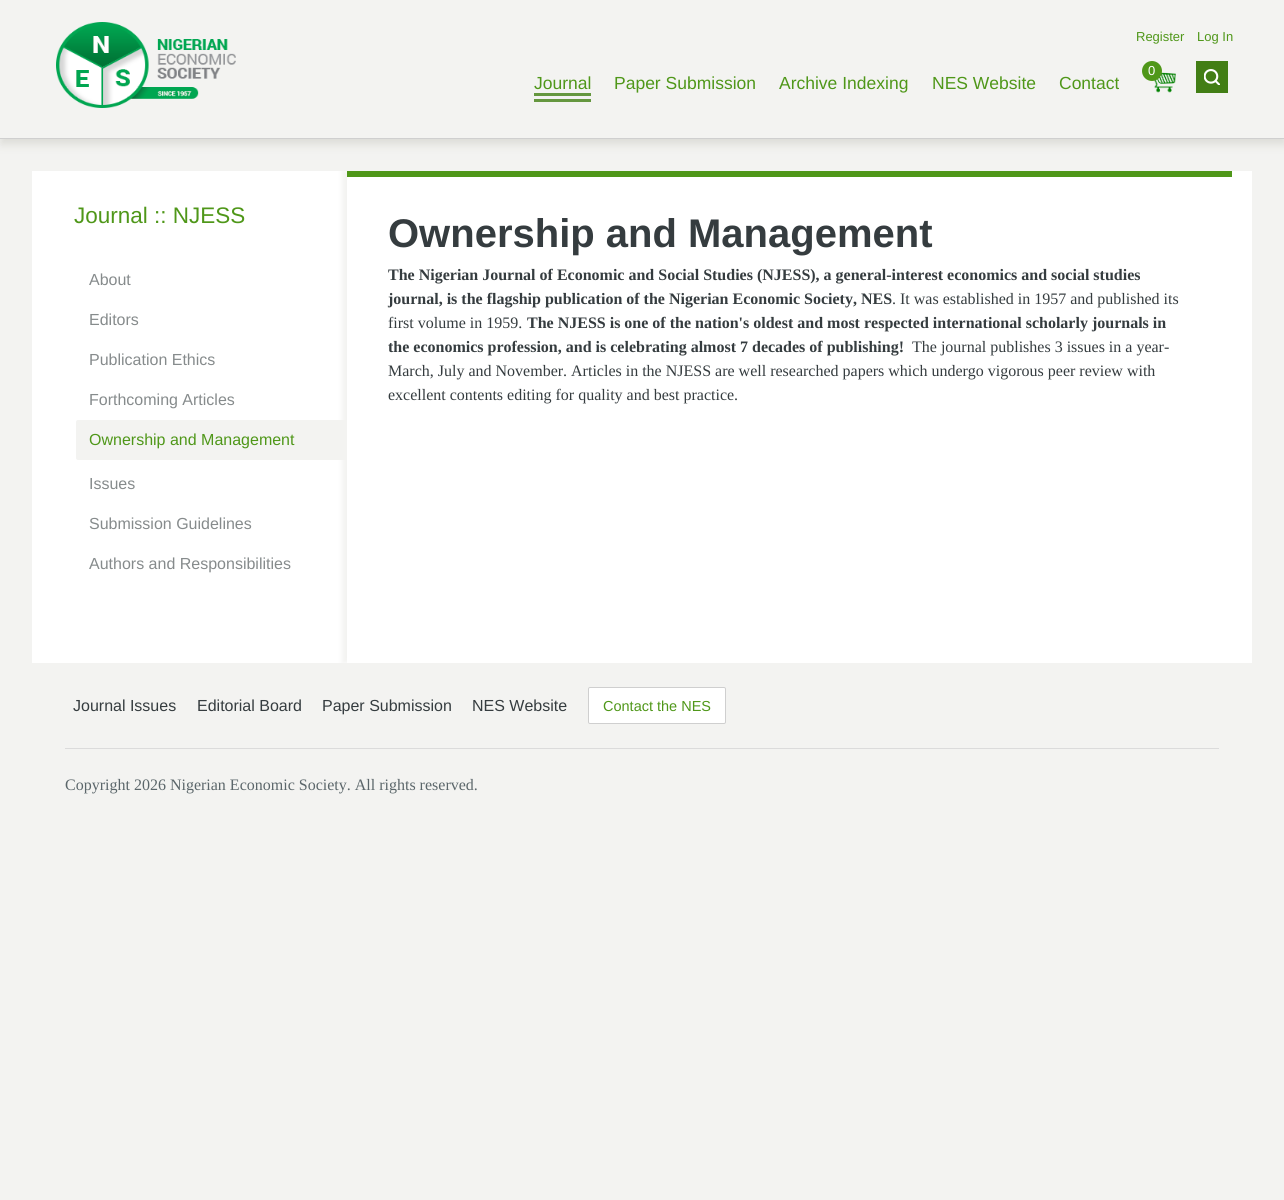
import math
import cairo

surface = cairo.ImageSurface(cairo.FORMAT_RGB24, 1284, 1200)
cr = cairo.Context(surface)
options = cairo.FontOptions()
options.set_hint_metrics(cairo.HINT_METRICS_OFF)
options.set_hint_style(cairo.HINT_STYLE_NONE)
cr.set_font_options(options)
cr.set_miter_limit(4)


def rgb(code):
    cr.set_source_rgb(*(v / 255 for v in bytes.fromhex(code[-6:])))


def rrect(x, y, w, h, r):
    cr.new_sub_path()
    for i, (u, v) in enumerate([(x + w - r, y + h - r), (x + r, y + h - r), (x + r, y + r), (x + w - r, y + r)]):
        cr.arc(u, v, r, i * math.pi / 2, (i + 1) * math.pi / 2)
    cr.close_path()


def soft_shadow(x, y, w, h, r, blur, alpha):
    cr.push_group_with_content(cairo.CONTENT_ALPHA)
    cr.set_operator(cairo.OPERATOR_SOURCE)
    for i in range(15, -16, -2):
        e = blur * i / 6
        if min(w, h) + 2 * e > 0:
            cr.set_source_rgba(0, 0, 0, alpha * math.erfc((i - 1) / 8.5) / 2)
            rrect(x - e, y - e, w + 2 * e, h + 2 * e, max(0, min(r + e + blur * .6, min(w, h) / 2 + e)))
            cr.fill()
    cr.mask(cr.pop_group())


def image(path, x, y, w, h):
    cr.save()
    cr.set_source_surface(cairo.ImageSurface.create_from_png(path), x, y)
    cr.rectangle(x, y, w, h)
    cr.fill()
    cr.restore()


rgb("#f3f3f1")
cr.paint()
cr.save()
cr.rectangle(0, 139, 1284, 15)
cr.clip()
rgb("#dbdbd6")
soft_shadow(1, 5, 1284, 139, 0, 5, 1)
cr.restore()
image("img/1.png", 56, 22, 180, 86)
image("img/2.png", 1154, 72, 22, 21)
rgb("#4f9719")
cr.arc(1152, 71, 10, 0, 2 * math.pi)
cr.fill()
for x, y, w, h, color in [
    (534, 93, 57, 3, "#65973f"),
    (534, 99, 57, 3, "#65973f"),
    (1196, 61, 32, 32, "#427e15"),
]:
    rgb(color)
    cr.rectangle(x, y, w, h)
    cr.fill()
image("img/3.png", 1204, 69, 16, 16)
rgb("#cfcfcf")
cr.rectangle(0, 138, 1284, 1)
cr.fill()
rgb("#ffffff")
cr.rectangle(32, 171, 1220, 492)
cr.fill()
rgb("#f3f3f1")
rrect(76, 420, 271, 40, 2)
cr.fill()
cr.save()
cr.set_fill_rule(cairo.FILL_RULE_EVEN_ODD)
cr.new_path()
cr.move_to(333, 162)
cr.line_to(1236, 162)
cr.line_to(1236, 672)
cr.line_to(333, 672)
cr.close_path()
cr.move_to(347, 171)
cr.line_to(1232, 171)
cr.line_to(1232, 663)
cr.line_to(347, 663)
cr.close_path()
cr.clip()
rgb("#f3f3f1")
soft_shadow(342, 171, 885, 492, 0, 2.5, 1)
cr.restore()
rgb("#4f9719")
cr.rectangle(347, 171, 885, 6)
cr.fill()
rgb("#dbdbdb")
cr.rectangle(65, 748, 1154, 1)
cr.fill()
rgb("#ffffff")
rrect(588.5, 687.5, 137, 36, 1.5)
cr.fill_preserve()
rgb("#cfcfcf")
cr.set_line_width(1)
cr.stroke()
cr.select_font_face("Liberation Sans")
cr.set_font_size(13)
rgb("#4f9719")
cr.move_to(1136, 41)
cr.show_text("Register")
cr.move_to(1197, 41)
cr.show_text("Log In")
rgb("#ffffff")
cr.move_to(1148, 75)
cr.show_text("0")
cr.set_font_size(17.5)
rgb("#4f9719")
for x, y, s in [
    (534, 89, "Journal"),
    (614, 89, "Paper Submission"),
    (779, 89, "Archive Indexing"),
    (932, 89, "NES Website"),
    (1059, 89, "Contact"),
]:
    cr.move_to(x, y)
    cr.show_text(s)
cr.set_font_size(22.5)
cr.move_to(74, 223)
cr.show_text("Journal :: NJESS")
cr.set_font_size(16)
rgb("#868b8c")
for x, y, s in [
    (89, 285, "About"),
    (89, 325, "Editors"),
    (89, 365, "Publication Ethics"),
    (89, 405, "Forthcoming Articles"),
]:
    cr.move_to(x, y)
    cr.show_text(s)
rgb("#4f9719")
cr.move_to(89, 445)
cr.show_text("Ownership and Management")
rgb("#868b8c")
for x, y, s in [
    (89, 489, "Issues"),
    (89, 529, "Submission Guidelines"),
    (89, 569, "Authors and Responsibilities"),
]:
    cr.move_to(x, y)
    cr.show_text(s)
cr.select_font_face("Liberation Sans", cairo.FONT_SLANT_NORMAL, cairo.FONT_WEIGHT_BOLD)
cr.set_font_size(40)
rgb("#353c3f")
cr.move_to(388, 247)
cr.show_text("Ownership and Management")
cr.select_font_face("Liberation Serif", cairo.FONT_SLANT_NORMAL, cairo.FONT_WEIGHT_BOLD)
cr.set_font_size(16)
cr.move_to(388, 280)
cr.show_text("The Nigerian Journal of Economic and Social Studies (NJESS), a general-interest economics and social studies")
cr.move_to(388, 304)
cr.show_text("journal, is the flagship publication of the Nigerian Economic Society, NES")
cr.select_font_face("Liberation Serif")
cr.move_to(892, 304)
cr.show_text(". It was established in 1957 and published its")
cr.move_to(388, 328)
cr.show_text("first volume in 1959.")
cr.select_font_face("Liberation Serif", cairo.FONT_SLANT_NORMAL, cairo.FONT_WEIGHT_BOLD)
cr.move_to(527, 328)
cr.show_text("The NJESS is one of the nation's oldest and most respected international scholarly journals in")
cr.move_to(388, 352)
cr.show_text("the economics profession, and is celebrating almost 7 decades of publishing!")
cr.select_font_face("Liberation Serif")
for x, y, s in [
    (912, 352, "The journal publishes 3 issues in a year-"),
    (388, 376, "March, July and November. Articles in the NJESS are well researched papers which undergo vigorous peer review with"),
    (388, 400, "excellent contents editing for quality and best practice."),
]:
    cr.move_to(x, y)
    cr.show_text(s)
cr.select_font_face("Liberation Sans")
for x, y, s in [
    (73, 711, "Journal Issues"),
    (197, 711, "Editorial Board"),
    (322, 711, "Paper Submission"),
    (472, 711, "NES Website"),
]:
    cr.move_to(x, y)
    cr.show_text(s)
cr.set_font_size(14.5)
rgb("#4f9719")
cr.move_to(603, 711)
cr.show_text("Contact the NES")
cr.select_font_face("Liberation Serif")
cr.set_font_size(16)
rgb("#5b666a")
cr.move_to(65, 790)
cr.show_text("Copyright 2026 Nigerian Economic Society. All rights reserved.")
surface.write_to_png("page.png")
